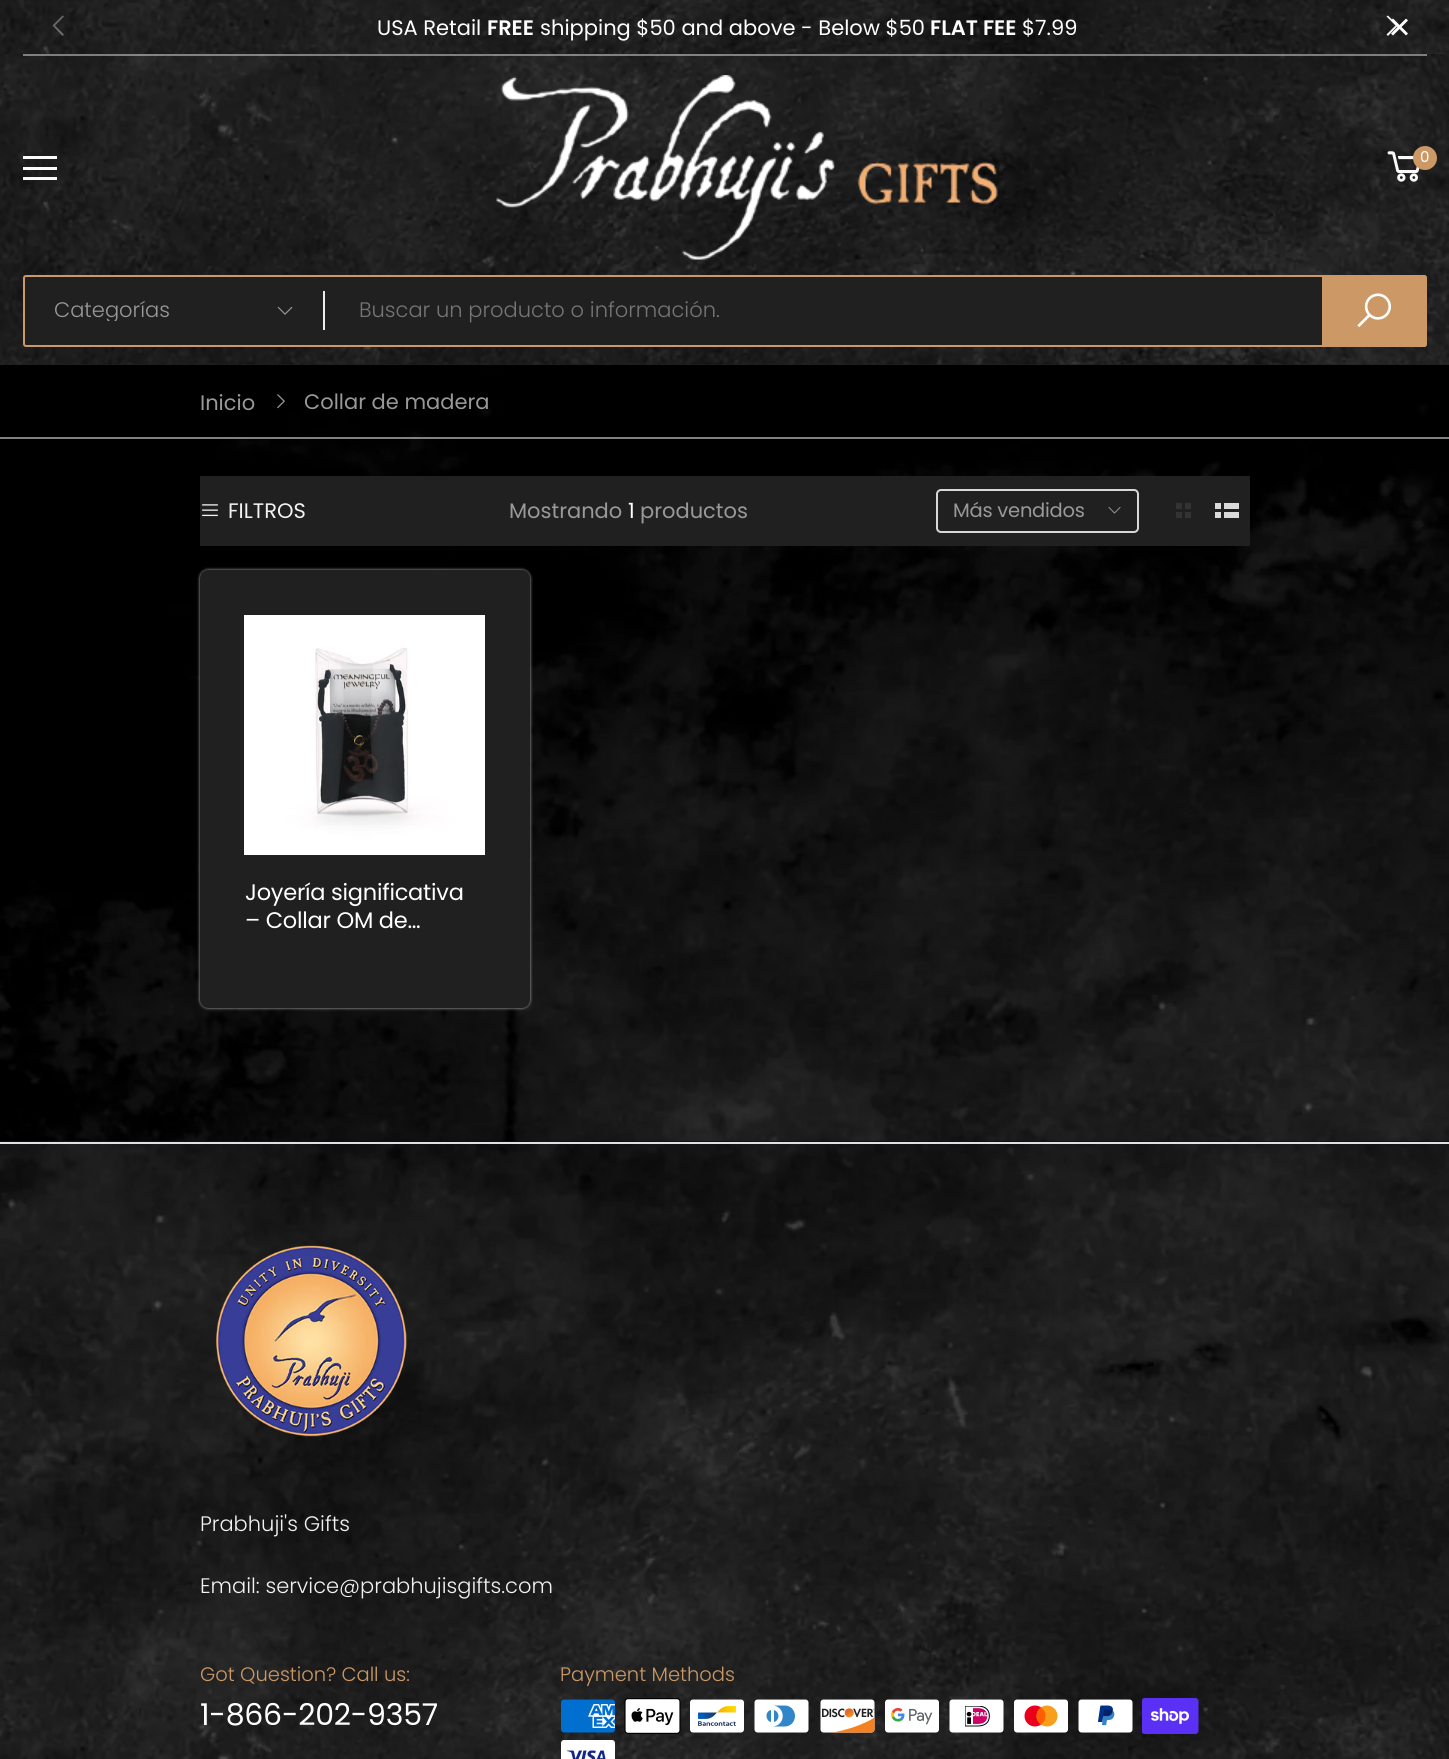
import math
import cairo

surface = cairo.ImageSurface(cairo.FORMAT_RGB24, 1449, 1759)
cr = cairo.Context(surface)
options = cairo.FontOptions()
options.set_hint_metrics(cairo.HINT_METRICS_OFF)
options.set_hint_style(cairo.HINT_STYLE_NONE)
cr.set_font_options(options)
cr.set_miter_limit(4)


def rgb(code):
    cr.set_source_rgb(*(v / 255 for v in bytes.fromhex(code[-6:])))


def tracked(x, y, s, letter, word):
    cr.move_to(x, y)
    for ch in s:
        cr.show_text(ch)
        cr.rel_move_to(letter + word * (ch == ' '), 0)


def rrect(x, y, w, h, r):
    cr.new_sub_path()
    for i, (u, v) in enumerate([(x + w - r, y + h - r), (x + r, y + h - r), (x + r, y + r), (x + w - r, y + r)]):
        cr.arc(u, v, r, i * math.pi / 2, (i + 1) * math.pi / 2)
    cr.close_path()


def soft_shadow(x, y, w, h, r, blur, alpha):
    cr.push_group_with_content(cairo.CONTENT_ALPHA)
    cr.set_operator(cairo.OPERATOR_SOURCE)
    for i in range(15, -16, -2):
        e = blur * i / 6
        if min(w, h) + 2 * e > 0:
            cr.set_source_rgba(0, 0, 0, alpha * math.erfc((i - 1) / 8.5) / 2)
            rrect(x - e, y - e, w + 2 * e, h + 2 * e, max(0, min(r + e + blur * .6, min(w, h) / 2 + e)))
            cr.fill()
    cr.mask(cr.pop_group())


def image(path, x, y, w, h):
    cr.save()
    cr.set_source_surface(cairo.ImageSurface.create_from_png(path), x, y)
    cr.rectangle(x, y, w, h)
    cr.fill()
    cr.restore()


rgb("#ffffff")
cr.paint()
image("img/1.png", 0, 1141, 1449, 1)
rgb("#202020")
cr.rectangle(0, 364, 1449, 1)
cr.fill()
image("img/2.png", 0, 54, 1449, 311)
image("img/3.png", 0, 0, 1449, 54)
cr.set_source_rgba(0.949, 0.949, 0.949, 0.35)
cr.new_path()
cr.move_to(62.5, 15.5)
cr.line_to(64, 16.5)
cr.line_to(55, 25.5)
cr.line_to(64, 34.5)
cr.line_to(62.5, 36)
cr.line_to(52.5, 25.5)
cr.close_path()
cr.fill()
rgb("#f2f2f2")
cr.new_path()
cr.move_to(1388, 15.5)
cr.line_to(1398, 25.5)
cr.line_to(1388, 36)
cr.line_to(1386.5, 34.5)
cr.line_to(1395.5, 25.5)
cr.line_to(1386.5, 16.5)
cr.close_path()
cr.fill()
rgb("#ffffff")
cr.new_path()
cr.move_to(1393, 18.5)
cr.line_to(1408, 33.5)
cr.line_to(1406, 35.5)
cr.line_to(1391, 20.5)
cr.close_path()
cr.fill()
cr.new_path()
cr.move_to(1391, 33.5)
cr.line_to(1406, 18.5)
cr.line_to(1408, 20.5)
cr.line_to(1393, 35.5)
cr.close_path()
cr.fill()
cr.set_source_rgba(0.871, 0.886, 0.902, 0.5)
cr.rectangle(23, 54, 1404, 2)
cr.fill()
rgb("#fafafa")
cr.rectangle(23, 156, 34, 3)
cr.rectangle(23, 167, 34, 3)
cr.rectangle(23, 177, 34, 3)
cr.fill()
image("img/4.png", 496, 75, 502, 185)
image("img/5.png", 1387, 151, 33, 31)
rgb("#cc9966")
cr.arc(1425, 158, 12, 0, 2 * math.pi)
cr.fill()
rgb("#202020")
cr.rectangle(23, 275, 1404, 72)
cr.fill()
rrect(24, 276, 1402, 70, 2)
rgb("#cc9966")
cr.stroke()
image("img/6.png", 277, 306, 16, 9)
rgb("#ebebeb")
cr.rectangle(323, 291, 2, 39)
cr.fill()
rgb("#cc9966")
cr.new_path()
cr.move_to(1322, 275)
cr.line_to(1424, 275)
cr.curve_to(1425.5, 275, 1427, 276.5, 1427, 278)
cr.line_to(1427, 344)
cr.curve_to(1427, 345.5, 1425.5, 347, 1424, 347)
cr.line_to(1322, 347)
cr.close_path()
cr.fill()
image("img/7.png", 1357, 293, 35, 35)
image("img/8.png", 0, 365, 1449, 777)
image("img/9.png", 277, 394, 8, 15)
cr.set_source_rgba(0.922, 0.922, 0.922, 0.55)
cr.rectangle(0, 437, 1449, 2)
cr.fill()
rgb("#202020")
cr.rectangle(200, 476, 1050, 70)
cr.fill()
image("img/10.png", 202, 504, 16, 13)
rrect(937, 490, 201, 42, 4)
rgb("#d7d7d7")
cr.stroke()
image("img/11.png", 1108, 507, 13, 7)
for x, y, w, h, color in [
    (1176, 503, 6, 6, "#333333"),
    (1185, 503, 6, 6, "#333333"),
    (1176, 512, 6, 6, "#333333"),
    (1185, 512, 6, 6, "#333333"),
    (1215, 503, 6, 6, "#dadada"),
    (1224, 503, 15, 6, "#dadada"),
    (1215, 512, 6, 6, "#dadada"),
    (1224, 512, 15, 6, "#dadada"),
]:
    rgb(color)
    cr.rectangle(x, y, w, h)
    cr.fill()
rgb("#bdbdbd")
soft_shadow(200, 570, 330, 438, 8, 1.5, 1)
rgb("#202020")
rrect(200, 570, 330, 438, 8)
cr.fill()
image("img/12.png", 244, 615, 241, 240)
image("img/13.png", 0, 1141, 1449, 1)
image("img/14.png", 0, 1141, 1449, 618)
rgb("#dee2e6")
cr.rectangle(0, 1142, 1449, 2)
cr.fill()
image("img/15.png", 216, 1245, 191, 192)
image("img/16.png", 561, 1699, 54, 34)
image("img/17.png", 624, 1698, 57, 36)
image("img/18.png", 690, 1699, 54, 34)
image("img/19.png", 754, 1699, 55, 34)
image("img/20.png", 820, 1699, 55, 34)
image("img/21.png", 885, 1699, 54, 34)
image("img/22.png", 949, 1699, 55, 34)
image("img/23.png", 1014, 1699, 54, 34)
image("img/24.png", 1078, 1699, 55, 34)
image("img/25.png", 1142, 1698, 57, 36)
image("img/26.png", 561, 1740, 54, 19)
cr.select_font_face("Poppins")
cr.set_font_size(21)
rgb("#ffffff")
cr.move_to(377, 35)
cr.show_text("USA Retail")
cr.select_font_face("Poppins SemiBold")
cr.move_to(487, 35)
cr.show_text("FREE")
cr.select_font_face("Poppins")
cr.move_to(540, 35)
cr.show_text("shipping $50 and above - Below $50")
cr.select_font_face("Poppins SemiBold")
cr.move_to(930, 35)
cr.show_text("FLAT FEE")
cr.select_font_face("Poppins")
cr.move_to(1022, 35)
cr.show_text("$7.99")
cr.set_font_size(15)
cr.move_to(1420, 162)
cr.show_text("0")
cr.save()
cr.rectangle(54, 300, 210, 21)
cr.clip()
cr.select_font_face("Poppins Light")
cr.set_font_size(21)
rgb("#999999")
cr.move_to(54, 317)
cr.show_text("Categorías")
cr.restore()
cr.select_font_face("Poppins Light")
cr.set_font_size(21)
rgb("#757575")
cr.move_to(359, 317)
cr.show_text("Buscar un producto o información.")
cr.select_font_face("Poppins")
rgb("#999999")
cr.move_to(200, 410)
cr.show_text("Inicio")
cr.move_to(304, 409)
cr.show_text("Collar de madera")
rgb("#f2f2f2")
cr.move_to(228, 518)
cr.show_text("FILTROS")
rgb("#999999")
cr.move_to(509, 518)
cr.show_text("Mostrando")
rgb("#ffffff")
cr.move_to(628, 518)
cr.show_text("1")
rgb("#999999")
cr.move_to(640, 518)
cr.show_text("productos")
cr.set_font_size(19.5)
tracked(953, 517, "Más vendidos", -0.25, 0)
cr.set_font_size(22.5)
rgb("#ffffff")
tracked(245, 900, "Joyería significativa", -0.25, 0)
tracked(245, 928, "– Collar OM de…", -0.25, 0)
cr.select_font_face("Poppins Light")
cr.set_font_size(21)
rgb("#f2f2f2")
cr.move_to(200, 1531)
cr.show_text("Prabhuji's Gifts")
cr.move_to(200, 1593)
cr.show_text("Email: service@prabhujisgifts.com")
cr.set_font_size(19.5)
rgb("#cc9966")
cr.move_to(200, 1681)
cr.show_text("Got Question? Call us:")
cr.select_font_face("Poppins")
cr.set_font_size(30)
rgb("#ffffff")
tracked(200, 1725, "1-866-202-9357", -0.25, 0)
cr.select_font_face("Poppins Light")
cr.set_font_size(19.5)
rgb("#cc9966")
cr.move_to(560, 1681)
cr.show_text("Payment Methods")
surface.write_to_png("page.png")
